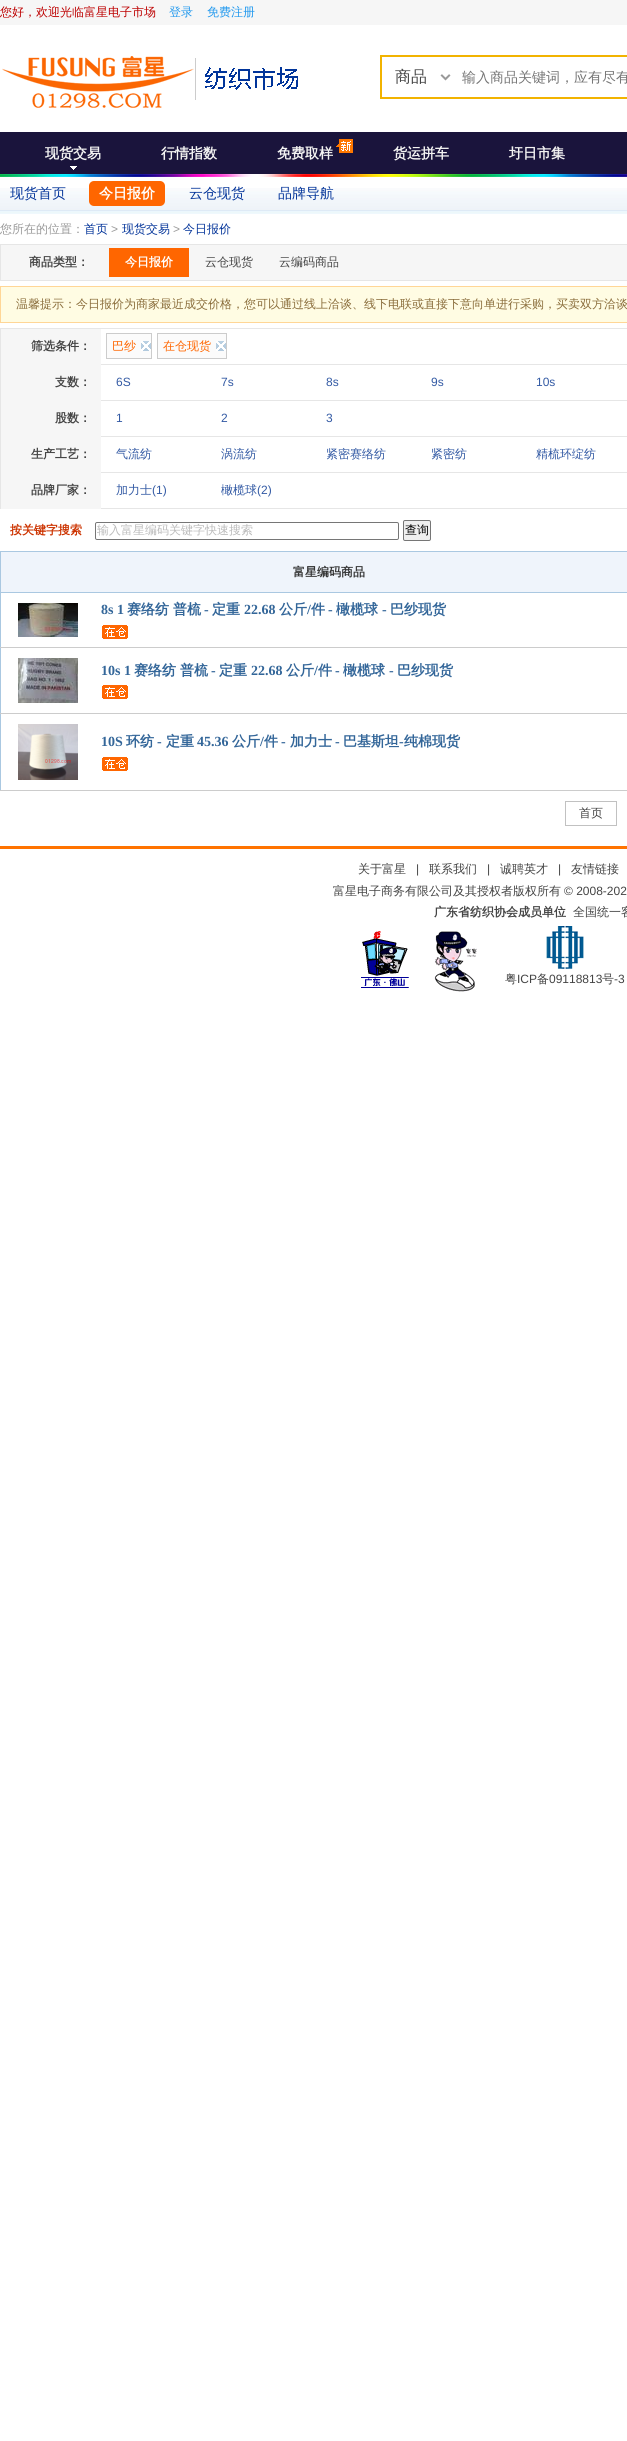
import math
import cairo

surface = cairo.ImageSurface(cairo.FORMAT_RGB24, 627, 2441)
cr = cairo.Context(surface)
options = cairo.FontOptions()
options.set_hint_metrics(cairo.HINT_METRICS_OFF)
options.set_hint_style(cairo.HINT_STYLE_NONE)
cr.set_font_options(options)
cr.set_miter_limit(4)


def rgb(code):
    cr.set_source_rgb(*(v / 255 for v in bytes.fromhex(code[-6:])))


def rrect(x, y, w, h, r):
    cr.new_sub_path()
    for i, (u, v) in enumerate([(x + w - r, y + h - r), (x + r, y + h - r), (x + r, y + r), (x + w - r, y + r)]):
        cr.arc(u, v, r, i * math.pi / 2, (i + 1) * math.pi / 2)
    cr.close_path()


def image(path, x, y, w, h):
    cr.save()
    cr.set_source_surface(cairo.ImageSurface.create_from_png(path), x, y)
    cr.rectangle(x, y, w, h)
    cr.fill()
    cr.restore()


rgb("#ffffff")
cr.paint()
rgb("#f6f6f6")
cr.rectangle(0, 0, 627, 25)
cr.fill()
image("img/1.png", 2, 56, 192, 52)
rgb("#cccccc")
cr.rectangle(195, 58, 1, 42)
cr.fill()
image("img/2.png", 205, 67, 93, 23)
cr.rectangle(381, 56, 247, 42)
rgb("#f2b300")
cr.stroke()
image("img/3.png", 440, 74, 11, 7)
rgb("#1a143c")
cr.rectangle(0, 132, 627, 42)
cr.fill()
image("img/4.png", 0, 174, 627, 3)
image("img/5.png", 70, 166, 7, 4)
image("img/6.png", 336, 139, 17, 14)
image("img/7.png", 0, 188, 627, 26)
rgb("#ff6600")
rrect(89, 181, 76, 25, 5)
cr.fill()
rgb("#f6f6f6")
cr.rectangle(0.5, 244.5, 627, 36)
cr.fill_preserve()
rgb("#e6e6e6")
cr.set_line_width(1)
cr.stroke()
rgb("#ff6600")
cr.rectangle(109, 248, 80, 29)
cr.fill()
rgb("#fffce3")
cr.rectangle(0.5, 286.5, 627, 36)
cr.fill_preserve()
rgb("#ffd696")
cr.stroke()
for x, y, w, h, color in [
    (0, 328, 627, 1, "#e6e6e6"),
    (0, 328, 1, 181, "#e6e6e6"),
    (0, 364, 627, 1, "#e6e6e6"),
    (0, 400, 627, 1, "#e6e6e6"),
    (0, 436, 627, 1, "#e6e6e6"),
    (0, 472, 627, 1, "#e6e6e6"),
    (0, 508, 627, 1, "#e6e6e6"),
    (1, 329, 100, 180, "#f6f6f6"),
    (107, 334, 44, 24, "#fbfbfb"),
]:
    rgb(color)
    cr.rectangle(x, y, w, h)
    cr.fill()
image("img/8.png", 141, 341, 10, 10)
cr.rectangle(106.5, 333.5, 45, 25)
rgb("#cccccc")
cr.stroke()
rgb("#fbfbfb")
cr.rectangle(158, 334, 68, 24)
cr.fill()
image("img/8.png", 216, 341, 10, 10)
cr.rectangle(157.5, 333.5, 69, 25)
rgb("#cccccc")
cr.stroke()
rrect(95.5, 522.5, 303, 17, 1.5)
rgb("#767676")
cr.stroke()
rgb("#efefef")
rrect(403.5, 520.5, 27, 20, 1.5)
cr.fill_preserve()
rgb("#767676")
cr.stroke()
for x, y, w, h, color in [
    (0, 551, 627, 1, "#aac8e1"),
    (0, 551, 1, 240, "#aac8e1"),
    (1, 552, 626, 40, "#eff4fb"),
    (0, 592, 627, 1, "#aac8e1"),
]:
    rgb(color)
    cr.rectangle(x, y, w, h)
    cr.fill()
image("img/9.png", 18, 603, 60, 34)
rgb("#cccccc")
cr.rectangle(0, 647, 627, 1)
cr.fill()
image("img/10.png", 102, 625, 26, 14)
image("img/11.png", 18, 658, 60, 45)
cr.rectangle(0, 713, 627, 1)
cr.fill()
image("img/10.png", 102, 685, 26, 14)
image("img/12.png", 18, 724, 60, 56)
cr.rectangle(0, 790, 627, 1)
cr.fill()
image("img/10.png", 102, 757, 26, 14)
cr.rectangle(565.5, 801.5, 51, 24)
rgb("#c1c1c1")
cr.stroke()
rgb("#ff7300")
cr.rectangle(0, 846, 627, 3)
cr.fill()
image("img/13.png", 361, 931, 48, 57)
image("img/14.png", 434, 931, 43, 61)
image("img/15.png", 546, 926, 38, 43)
cr.select_font_face("WenQuanYi Zen Hei Medium")
cr.set_font_size(12)
rgb("#bd0000")
cr.move_to(0, 16)
cr.show_text("您好，欢迎光临富星电子市场")
rgb("#2299ee")
cr.move_to(169, 16)
cr.show_text("登录")
cr.move_to(207, 16)
cr.show_text("免费注册")
cr.set_font_size(16)
rgb("#444444")
cr.move_to(395, 82)
cr.show_text("商品")
cr.set_font_size(14)
rgb("#757575")
cr.move_to(462, 82)
cr.show_text("输入商品关键词，应有尽有")
cr.select_font_face("WenQuanYi Zen Hei", cairo.FONT_SLANT_NORMAL, cairo.FONT_WEIGHT_BOLD)
rgb("#f3f3f2")
for x, y, s in [
    (45, 158, "现货交易"),
    (161, 158, "行情指数"),
    (277, 158, "免费取样"),
    (393, 158, "货运拼车"),
    (509, 158, "圩日市集"),
]:
    cr.move_to(x, y)
    cr.show_text(s)
cr.select_font_face("WenQuanYi Zen Hei Medium")
rgb("#023399")
cr.move_to(10, 198)
cr.show_text("现货首页")
cr.select_font_face("WenQuanYi Zen Hei", cairo.FONT_SLANT_NORMAL, cairo.FONT_WEIGHT_BOLD)
rgb("#ffffff")
cr.move_to(99, 198)
cr.show_text("今日报价")
cr.select_font_face("WenQuanYi Zen Hei Medium")
rgb("#023399")
cr.move_to(189, 198)
cr.show_text("云仓现货")
cr.move_to(278, 198)
cr.show_text("品牌导航")
cr.set_font_size(12)
rgb("#999999")
cr.move_to(0, 233)
cr.show_text("您所在的位置：")
rgb("#023399")
cr.move_to(84, 233)
cr.show_text("首页")
cr.select_font_face("Liberation Sans")
rgb("#999999")
cr.move_to(111, 233)
cr.show_text(">")
cr.select_font_face("WenQuanYi Zen Hei Medium")
rgb("#023399")
cr.move_to(122, 233)
cr.show_text("现货交易")
cr.select_font_face("Liberation Sans")
rgb("#999999")
cr.move_to(173, 233)
cr.show_text(">")
cr.select_font_face("WenQuanYi Zen Hei Medium")
rgb("#023399")
cr.move_to(183, 233)
cr.show_text("今日报价")
cr.select_font_face("WenQuanYi Zen Hei", cairo.FONT_SLANT_NORMAL, cairo.FONT_WEIGHT_BOLD)
rgb("#444444")
cr.move_to(29, 266)
cr.show_text("商品类型：")
rgb("#ffffff")
cr.move_to(125, 266)
cr.show_text("今日报价")
cr.select_font_face("WenQuanYi Zen Hei Medium")
rgb("#444444")
cr.move_to(205, 266)
cr.show_text("云仓现货")
cr.move_to(279, 266)
cr.show_text("云编码商品")
rgb("#8a6d3b")
cr.move_to(16, 308)
cr.show_text("温馨提示：今日报价为商家最近成交价格，您可以通过线上洽谈、线下电联或直接下意向单进行采购，买卖双方洽谈")
cr.select_font_face("WenQuanYi Zen Hei", cairo.FONT_SLANT_NORMAL, cairo.FONT_WEIGHT_BOLD)
rgb("#444444")
cr.move_to(31, 350)
cr.show_text("筛选条件：")
cr.select_font_face("WenQuanYi Zen Hei Medium")
rgb("#ff6600")
cr.move_to(112, 350)
cr.show_text("巴纱")
cr.move_to(163, 350)
cr.show_text("在仓现货")
cr.select_font_face("WenQuanYi Zen Hei", cairo.FONT_SLANT_NORMAL, cairo.FONT_WEIGHT_BOLD)
rgb("#444444")
cr.move_to(55, 386)
cr.show_text("支数：")
cr.select_font_face("Liberation Sans")
rgb("#335aa4")
for x, y, s in [
    (116, 386, "6S"),
    (221, 386, "7s"),
    (326, 386, "8s"),
    (431, 386, "9s"),
    (536, 386, "10s"),
]:
    cr.move_to(x, y)
    cr.show_text(s)
cr.select_font_face("WenQuanYi Zen Hei", cairo.FONT_SLANT_NORMAL, cairo.FONT_WEIGHT_BOLD)
rgb("#444444")
cr.move_to(55, 422)
cr.show_text("股数：")
cr.select_font_face("Liberation Sans")
rgb("#335aa4")
for x, y, s in [
    (116, 422, "1"),
    (221, 422, "2"),
    (326, 422, "3"),
]:
    cr.move_to(x, y)
    cr.show_text(s)
cr.select_font_face("WenQuanYi Zen Hei", cairo.FONT_SLANT_NORMAL, cairo.FONT_WEIGHT_BOLD)
rgb("#444444")
cr.move_to(31, 458)
cr.show_text("生产工艺：")
cr.select_font_face("WenQuanYi Zen Hei Medium")
rgb("#335aa4")
for x, y, s in [
    (116, 458, "气流纺"),
    (221, 458, "涡流纺"),
    (326, 458, "紧密赛络纺"),
    (431, 458, "紧密纺"),
    (536, 458, "精梳环绽纺"),
]:
    cr.move_to(x, y)
    cr.show_text(s)
cr.select_font_face("WenQuanYi Zen Hei", cairo.FONT_SLANT_NORMAL, cairo.FONT_WEIGHT_BOLD)
rgb("#444444")
cr.move_to(31, 494)
cr.show_text("品牌厂家：")
cr.select_font_face("WenQuanYi Zen Hei Medium")
rgb("#335aa4")
cr.move_to(116, 494)
cr.show_text("加力士")
cr.select_font_face("Liberation Sans")
cr.move_to(152, 494)
cr.show_text("(1)")
cr.select_font_face("WenQuanYi Zen Hei Medium")
cr.move_to(221, 494)
cr.show_text("橄榄球")
cr.select_font_face("Liberation Sans")
cr.move_to(257, 494)
cr.show_text("(2)")
cr.select_font_face("WenQuanYi Zen Hei", cairo.FONT_SLANT_NORMAL, cairo.FONT_WEIGHT_BOLD)
rgb("#cc3300")
cr.move_to(10, 534)
cr.show_text("按关键字搜索")
cr.select_font_face("WenQuanYi Zen Hei Medium")
rgb("#bbbbbb")
cr.move_to(97, 534)
cr.show_text("输入富星编码关键字快速搜索")
rgb("#000000")
cr.move_to(405, 534)
cr.show_text("查询")
cr.select_font_face("WenQuanYi Zen Hei", cairo.FONT_SLANT_NORMAL, cairo.FONT_WEIGHT_BOLD)
rgb("#333333")
cr.move_to(293, 576)
cr.show_text("富星编码商品")
cr.select_font_face("Liberation Serif", cairo.FONT_SLANT_NORMAL, cairo.FONT_WEIGHT_BOLD)
cr.set_font_size(14)
rgb("#336699")
cr.move_to(101, 614)
cr.show_text("8s 1")
cr.select_font_face("WenQuanYi Zen Hei", cairo.FONT_SLANT_NORMAL, cairo.FONT_WEIGHT_BOLD)
cr.move_to(127, 614)
cr.show_text("赛络纺")
cr.move_to(173, 614)
cr.show_text("普梳")
cr.select_font_face("Liberation Serif", cairo.FONT_SLANT_NORMAL, cairo.FONT_WEIGHT_BOLD)
cr.move_to(204, 614)
cr.show_text("-")
cr.select_font_face("WenQuanYi Zen Hei", cairo.FONT_SLANT_NORMAL, cairo.FONT_WEIGHT_BOLD)
cr.move_to(212, 614)
cr.show_text("定重")
cr.select_font_face("Liberation Serif", cairo.FONT_SLANT_NORMAL, cairo.FONT_WEIGHT_BOLD)
cr.move_to(244, 614)
cr.show_text("22.68")
cr.select_font_face("WenQuanYi Zen Hei", cairo.FONT_SLANT_NORMAL, cairo.FONT_WEIGHT_BOLD)
cr.move_to(279, 614)
cr.show_text("公斤")
cr.select_font_face("Liberation Serif", cairo.FONT_SLANT_NORMAL, cairo.FONT_WEIGHT_BOLD)
cr.move_to(307, 614)
cr.show_text("/")
cr.select_font_face("WenQuanYi Zen Hei", cairo.FONT_SLANT_NORMAL, cairo.FONT_WEIGHT_BOLD)
cr.move_to(311, 614)
cr.show_text("件")
cr.select_font_face("Liberation Serif", cairo.FONT_SLANT_NORMAL, cairo.FONT_WEIGHT_BOLD)
cr.move_to(328, 614)
cr.show_text("-")
cr.select_font_face("WenQuanYi Zen Hei", cairo.FONT_SLANT_NORMAL, cairo.FONT_WEIGHT_BOLD)
cr.move_to(336, 614)
cr.show_text("橄榄球")
cr.select_font_face("Liberation Serif", cairo.FONT_SLANT_NORMAL, cairo.FONT_WEIGHT_BOLD)
cr.move_to(382, 614)
cr.show_text("-")
cr.select_font_face("WenQuanYi Zen Hei", cairo.FONT_SLANT_NORMAL, cairo.FONT_WEIGHT_BOLD)
cr.move_to(390, 614)
cr.show_text("巴纱现货")
cr.select_font_face("Liberation Serif", cairo.FONT_SLANT_NORMAL, cairo.FONT_WEIGHT_BOLD)
cr.move_to(101, 675)
cr.show_text("10s 1")
cr.select_font_face("WenQuanYi Zen Hei", cairo.FONT_SLANT_NORMAL, cairo.FONT_WEIGHT_BOLD)
cr.move_to(134, 675)
cr.show_text("赛络纺")
cr.move_to(180, 675)
cr.show_text("普梳")
cr.select_font_face("Liberation Serif", cairo.FONT_SLANT_NORMAL, cairo.FONT_WEIGHT_BOLD)
cr.move_to(211, 675)
cr.show_text("-")
cr.select_font_face("WenQuanYi Zen Hei", cairo.FONT_SLANT_NORMAL, cairo.FONT_WEIGHT_BOLD)
cr.move_to(219, 675)
cr.show_text("定重")
cr.select_font_face("Liberation Serif", cairo.FONT_SLANT_NORMAL, cairo.FONT_WEIGHT_BOLD)
cr.move_to(251, 675)
cr.show_text("22.68")
cr.select_font_face("WenQuanYi Zen Hei", cairo.FONT_SLANT_NORMAL, cairo.FONT_WEIGHT_BOLD)
cr.move_to(286, 675)
cr.show_text("公斤")
cr.select_font_face("Liberation Serif", cairo.FONT_SLANT_NORMAL, cairo.FONT_WEIGHT_BOLD)
cr.move_to(314, 675)
cr.show_text("/")
cr.select_font_face("WenQuanYi Zen Hei", cairo.FONT_SLANT_NORMAL, cairo.FONT_WEIGHT_BOLD)
cr.move_to(318, 675)
cr.show_text("件")
cr.select_font_face("Liberation Serif", cairo.FONT_SLANT_NORMAL, cairo.FONT_WEIGHT_BOLD)
cr.move_to(335, 675)
cr.show_text("-")
cr.select_font_face("WenQuanYi Zen Hei", cairo.FONT_SLANT_NORMAL, cairo.FONT_WEIGHT_BOLD)
cr.move_to(343, 675)
cr.show_text("橄榄球")
cr.select_font_face("Liberation Serif", cairo.FONT_SLANT_NORMAL, cairo.FONT_WEIGHT_BOLD)
cr.move_to(389, 675)
cr.show_text("-")
cr.select_font_face("WenQuanYi Zen Hei", cairo.FONT_SLANT_NORMAL, cairo.FONT_WEIGHT_BOLD)
cr.move_to(397, 675)
cr.show_text("巴纱现货")
cr.select_font_face("Liberation Serif", cairo.FONT_SLANT_NORMAL, cairo.FONT_WEIGHT_BOLD)
cr.move_to(101, 746)
cr.show_text("10S")
cr.select_font_face("WenQuanYi Zen Hei", cairo.FONT_SLANT_NORMAL, cairo.FONT_WEIGHT_BOLD)
cr.move_to(126, 746)
cr.show_text("环纺")
cr.select_font_face("Liberation Serif", cairo.FONT_SLANT_NORMAL, cairo.FONT_WEIGHT_BOLD)
cr.move_to(157, 746)
cr.show_text("-")
cr.select_font_face("WenQuanYi Zen Hei", cairo.FONT_SLANT_NORMAL, cairo.FONT_WEIGHT_BOLD)
cr.move_to(166, 746)
cr.show_text("定重")
cr.select_font_face("Liberation Serif", cairo.FONT_SLANT_NORMAL, cairo.FONT_WEIGHT_BOLD)
cr.move_to(197, 746)
cr.show_text("45.36")
cr.select_font_face("WenQuanYi Zen Hei", cairo.FONT_SLANT_NORMAL, cairo.FONT_WEIGHT_BOLD)
cr.move_to(232, 746)
cr.show_text("公斤")
cr.select_font_face("Liberation Serif", cairo.FONT_SLANT_NORMAL, cairo.FONT_WEIGHT_BOLD)
cr.move_to(260, 746)
cr.show_text("/")
cr.select_font_face("WenQuanYi Zen Hei", cairo.FONT_SLANT_NORMAL, cairo.FONT_WEIGHT_BOLD)
cr.move_to(264, 746)
cr.show_text("件")
cr.select_font_face("Liberation Serif", cairo.FONT_SLANT_NORMAL, cairo.FONT_WEIGHT_BOLD)
cr.move_to(281, 746)
cr.show_text("-")
cr.select_font_face("WenQuanYi Zen Hei", cairo.FONT_SLANT_NORMAL, cairo.FONT_WEIGHT_BOLD)
cr.move_to(290, 746)
cr.show_text("加力士")
cr.select_font_face("Liberation Serif", cairo.FONT_SLANT_NORMAL, cairo.FONT_WEIGHT_BOLD)
cr.move_to(335, 746)
cr.show_text("-")
cr.select_font_face("WenQuanYi Zen Hei", cairo.FONT_SLANT_NORMAL, cairo.FONT_WEIGHT_BOLD)
cr.move_to(343, 746)
cr.show_text("巴基斯坦")
cr.select_font_face("Liberation Serif", cairo.FONT_SLANT_NORMAL, cairo.FONT_WEIGHT_BOLD)
cr.move_to(399, 746)
cr.show_text("-")
cr.select_font_face("WenQuanYi Zen Hei", cairo.FONT_SLANT_NORMAL, cairo.FONT_WEIGHT_BOLD)
cr.move_to(404, 746)
cr.show_text("纯棉现货")
cr.select_font_face("WenQuanYi Zen Hei Medium")
cr.set_font_size(12)
rgb("#444444")
cr.move_to(579, 817)
cr.show_text("首页")
cr.move_to(358, 873)
cr.show_text("关于富星")
cr.select_font_face("Liberation Sans")
cr.move_to(416, 873)
cr.show_text("|")
cr.select_font_face("WenQuanYi Zen Hei Medium")
cr.move_to(429, 873)
cr.show_text("联系我们")
cr.select_font_face("Liberation Sans")
cr.move_to(487, 873)
cr.show_text("|")
cr.select_font_face("WenQuanYi Zen Hei Medium")
cr.move_to(500, 873)
cr.show_text("诚聘英才")
cr.select_font_face("Liberation Sans")
cr.move_to(558, 873)
cr.show_text("|")
cr.select_font_face("WenQuanYi Zen Hei Medium")
cr.move_to(571, 873)
cr.show_text("友情链接")
cr.move_to(333, 895)
cr.show_text("富星电子商务有限公司及其授权者版权所有")
cr.select_font_face("Liberation Sans")
cr.move_to(564, 895)
cr.show_text("© 2008-202")
cr.select_font_face("WenQuanYi Zen Hei", cairo.FONT_SLANT_NORMAL, cairo.FONT_WEIGHT_BOLD)
cr.move_to(434, 916)
cr.show_text("广东省纺织协会成员单位")
cr.select_font_face("WenQuanYi Zen Hei Medium")
cr.move_to(573, 916)
cr.show_text("全国统一客")
cr.move_to(505, 983)
cr.show_text("粤")
cr.select_font_face("Liberation Sans")
cr.move_to(517, 983)
cr.show_text("ICP")
cr.select_font_face("WenQuanYi Zen Hei Medium")
cr.move_to(537, 983)
cr.show_text("备")
cr.select_font_face("Liberation Sans")
cr.move_to(549, 983)
cr.show_text("09118813")
cr.select_font_face("WenQuanYi Zen Hei Medium")
cr.move_to(602, 983)
cr.show_text("号")
cr.select_font_face("Liberation Sans")
cr.move_to(614, 983)
cr.show_text("-3")
surface.write_to_png("page.png")
